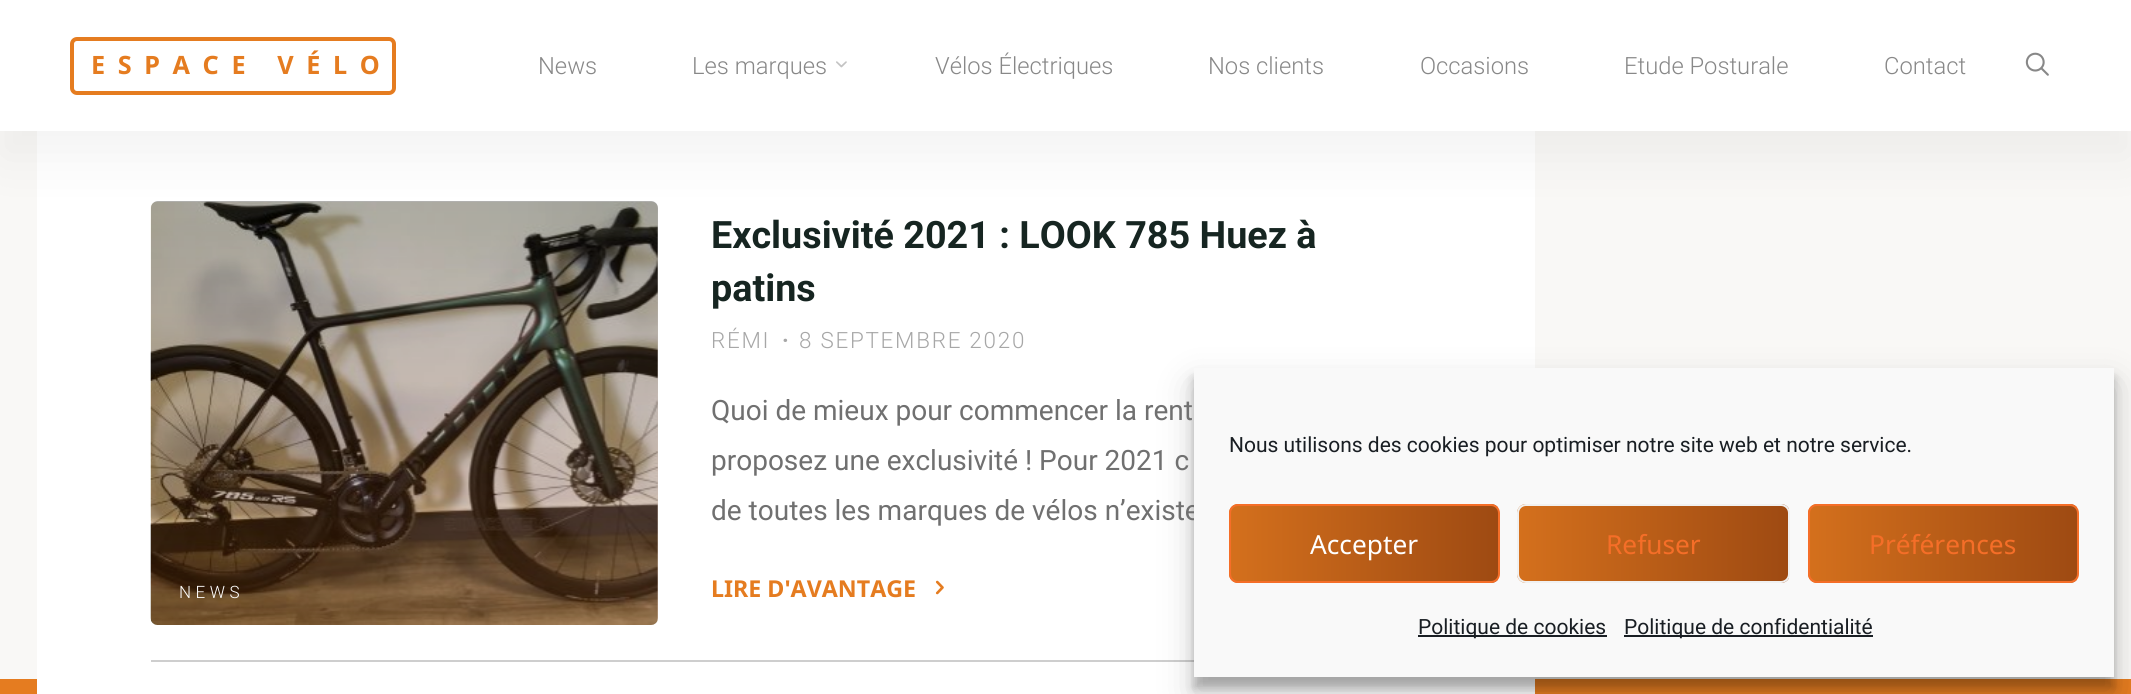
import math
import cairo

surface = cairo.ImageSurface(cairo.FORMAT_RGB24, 2131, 694)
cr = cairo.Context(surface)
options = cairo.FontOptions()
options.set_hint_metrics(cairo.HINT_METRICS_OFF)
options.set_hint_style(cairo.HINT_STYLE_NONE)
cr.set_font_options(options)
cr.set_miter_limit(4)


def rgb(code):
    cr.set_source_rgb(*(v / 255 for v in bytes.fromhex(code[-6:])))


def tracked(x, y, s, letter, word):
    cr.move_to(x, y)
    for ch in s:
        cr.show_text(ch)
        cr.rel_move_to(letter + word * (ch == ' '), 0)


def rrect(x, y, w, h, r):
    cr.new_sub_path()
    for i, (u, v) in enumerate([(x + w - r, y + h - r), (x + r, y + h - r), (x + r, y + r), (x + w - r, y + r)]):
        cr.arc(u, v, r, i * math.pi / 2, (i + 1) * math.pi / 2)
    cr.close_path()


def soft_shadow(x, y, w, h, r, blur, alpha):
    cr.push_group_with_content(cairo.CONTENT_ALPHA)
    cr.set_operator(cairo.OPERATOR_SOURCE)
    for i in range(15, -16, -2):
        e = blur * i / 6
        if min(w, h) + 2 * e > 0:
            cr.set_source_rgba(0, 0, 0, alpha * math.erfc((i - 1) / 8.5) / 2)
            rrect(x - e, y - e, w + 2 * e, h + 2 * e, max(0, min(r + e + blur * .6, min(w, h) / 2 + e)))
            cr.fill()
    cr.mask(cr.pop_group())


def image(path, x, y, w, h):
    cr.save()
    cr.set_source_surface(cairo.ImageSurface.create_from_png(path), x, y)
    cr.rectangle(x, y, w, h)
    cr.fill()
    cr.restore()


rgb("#f9f8f6")
cr.paint()
rgb("#e57c20")
cr.rectangle(0, 679, 2131, 15)
cr.fill()
rgb("#ffffff")
cr.rectangle(37, 131, 1498, 563)
cr.fill()
image("img/3.png", 150, 201, 508, 424)
gradient = cairo.LinearGradient(404, 201, 404, 625)
gradient.add_color_stop_rgba(0, 0, 0, 0, 0.3)
gradient.add_color_stop_rgba(1, 0.62, 0.29, 0.071, 0.3)
cr.set_source(gradient)
rrect(151, 201, 507, 424, 7)
cr.fill()
rgb("#000000")
soft_shadow(0, 26, 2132, 132, 0, 26, 0.05)
rgb("#ffffff")
cr.rectangle(0, 0, 2131, 131)
cr.fill()
rrect(72, 39, 322, 54, 5)
rgb("#e57c20")
cr.set_line_width(4)
cr.stroke()
image("img/1.png", 836, 61, 11, 7)
image("img/2.png", 2025, 52, 24, 24)
rgb("#cecece")
cr.rectangle(151, 660, 1043, 2)
cr.fill()
image("img/4.png", 935, 580, 9, 15)
rgb("#000000")
soft_shadow(1194, 378, 920, 310, 0, 5, 0.23)
soft_shadow(1194, 385, 920, 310, 0, 17.5, 0.19)
cr.select_font_face("Noto Sans", cairo.FONT_SLANT_NORMAL, cairo.FONT_WEIGHT_BOLD)
cr.set_font_size(25.25)
rgb("#e57c20")
tracked(91, 74, "ESPACE VÉLO", 12.6, 0)
cr.select_font_face("Roboto Light")
cr.set_font_size(23.75)
rgb("#888888")
for x, y, s in [
    (538, 74, "News"),
    (692, 74, "Les marques"),
    (935, 74, "Vélos Électriques"),
    (1208, 74, "Nos clients"),
    (1420, 74, "Occasions"),
    (1624, 74, "Etude Posturale"),
    (1884, 74, "Contact"),
]:
    cr.move_to(x, y)
    cr.show_text(s)
cr.set_font_size(17)
rgb("#ffffff")
tracked(179, 598, "NEWS", 4.5, 0)
cr.select_font_face("Roboto", cairo.FONT_SLANT_NORMAL, cairo.FONT_WEIGHT_BOLD)
cr.set_font_size(37.75)
rgb("#162521")
cr.move_to(711, 248)
cr.show_text("Exclusivité 2021 : LOOK 785 Huez à")
cr.move_to(711, 301)
cr.show_text("patins")
cr.select_font_face("Roboto Light")
cr.set_font_size(22.4)
rgb("#a7a7a7")
tracked(711, 348, "RÉMI", 1.75, 0)
cr.select_font_face("Roboto", cairo.FONT_SLANT_NORMAL, cairo.FONT_WEIGHT_BOLD)
tracked(782, 348, "·", 1.75, 0)
cr.select_font_face("Roboto Light")
tracked(799, 348, "8 SEPTEMBRE 2020", 1.75, 0)
cr.select_font_face("Roboto")
cr.set_font_size(28)
rgb("#707070")
for x, y, s in [
    (711, 420, "Quoi de mieux pour commencer la rent"),
    (711, 470, "proposez une exclusivité ! Pour 2021 c"),
    (711, 520, "de toutes les marques de vélos n’existe"),
]:
    cr.move_to(x, y)
    cr.show_text(s)
cr.select_font_face("Noto Sans", cairo.FONT_SLANT_NORMAL, cairo.FONT_WEIGHT_BOLD)
cr.set_font_size(23.25)
rgb("#e57c20")
cr.move_to(711, 597)
cr.show_text("LIRE D'AVANTAGE")
rgb("#f9f9f9")
cr.rectangle(1194, 368, 920, 309)
cr.fill()
cr.select_font_face("Roboto")
cr.set_font_size(21)
rgb("#191e23")
cr.move_to(1229, 452)
cr.show_text("Nous utilisons des cookies pour optimiser notre site web et notre service.")
cr.save()
rrect(1229, 504, 271, 79, 9)
cr.clip()
gradient = cairo.LinearGradient(427, 543, 1498, 543)
gradient.add_color_stop_rgba(0, 0.898, 0.486, 0.125, 1)
gradient.add_color_stop_rgba(0.33, 0.62, 0.29, 0.071, 1)
gradient.add_color_stop_rgba(0.67, 0.898, 0.486, 0.125, 1)
gradient.add_color_stop_rgba(1, 0.62, 0.29, 0.071, 1)
cr.set_source(gradient)
cr.new_path()
cr.move_to(1238, 504)
cr.line_to(1498, 504)
cr.line_to(1498, 583)
cr.line_to(1238, 583)
cr.curve_to(1233, 583, 1229, 579, 1229, 574)
cr.line_to(1229, 513)
cr.curve_to(1229, 508, 1233, 504, 1238, 504)
cr.close_path()
cr.fill()
cr.restore()
rrect(1230, 505, 269, 77, 8)
rgb("#f56e28")
cr.set_line_width(2)
cr.stroke()
cr.select_font_face("Noto Sans")
cr.set_font_size(26.25)
rgb("#ffffff")
cr.move_to(1310, 554)
cr.show_text("Accepter")
cr.save()
rrect(1517, 504, 273, 79, 9)
cr.clip()
gradient = cairo.LinearGradient(711, 543, 1789, 543)
gradient.add_color_stop_rgba(0, 0.898, 0.486, 0.125, 1)
gradient.add_color_stop_rgba(0.33, 0.62, 0.29, 0.071, 1)
gradient.add_color_stop_rgba(0.67, 0.898, 0.486, 0.125, 1)
gradient.add_color_stop_rgba(1, 0.62, 0.29, 0.071, 1)
cr.set_source(gradient)
cr.new_path()
cr.move_to(1526, 504)
cr.line_to(1789, 504)
cr.line_to(1789, 583)
cr.line_to(1526, 583)
cr.curve_to(1521, 583, 1517, 579, 1517, 574)
cr.line_to(1517, 513)
cr.curve_to(1517, 508, 1521, 504, 1526, 504)
cr.close_path()
cr.fill()
cr.restore()
rrect(1518, 505, 271, 77, 8)
rgb("#f1f1f1")
cr.stroke()
rgb("#f56e28")
cr.move_to(1606, 554)
cr.show_text("Refuser")
cr.save()
rrect(1808, 504, 271, 79, 9)
cr.clip()
gradient = cairo.LinearGradient(1006, 543, 2077, 543)
gradient.add_color_stop_rgba(0, 0.898, 0.486, 0.125, 1)
gradient.add_color_stop_rgba(0.33, 0.62, 0.29, 0.071, 1)
gradient.add_color_stop_rgba(0.67, 0.898, 0.486, 0.125, 1)
gradient.add_color_stop_rgba(1, 0.62, 0.29, 0.071, 1)
cr.set_source(gradient)
cr.new_path()
cr.move_to(1817, 504)
cr.line_to(2077, 504)
cr.line_to(2077, 583)
cr.line_to(1817, 583)
cr.curve_to(1812, 583, 1808, 579, 1808, 574)
cr.line_to(1808, 513)
cr.curve_to(1808, 508, 1812, 504, 1817, 504)
cr.close_path()
cr.fill()
cr.restore()
rrect(1809, 505, 269, 77, 8)
cr.stroke()
cr.move_to(1869, 554)
cr.show_text("Préférences")
rgb("#191e23")
cr.rectangle(1418, 635, 189, 2)
cr.fill()
cr.select_font_face("Roboto")
cr.set_font_size(21)
cr.move_to(1418, 634)
cr.show_text("Politique de cookies")
cr.rectangle(1624, 635, 249, 2)
cr.fill()
cr.move_to(1624, 634)
cr.show_text("Politique de confidentialité")
surface.write_to_png("page.png")
